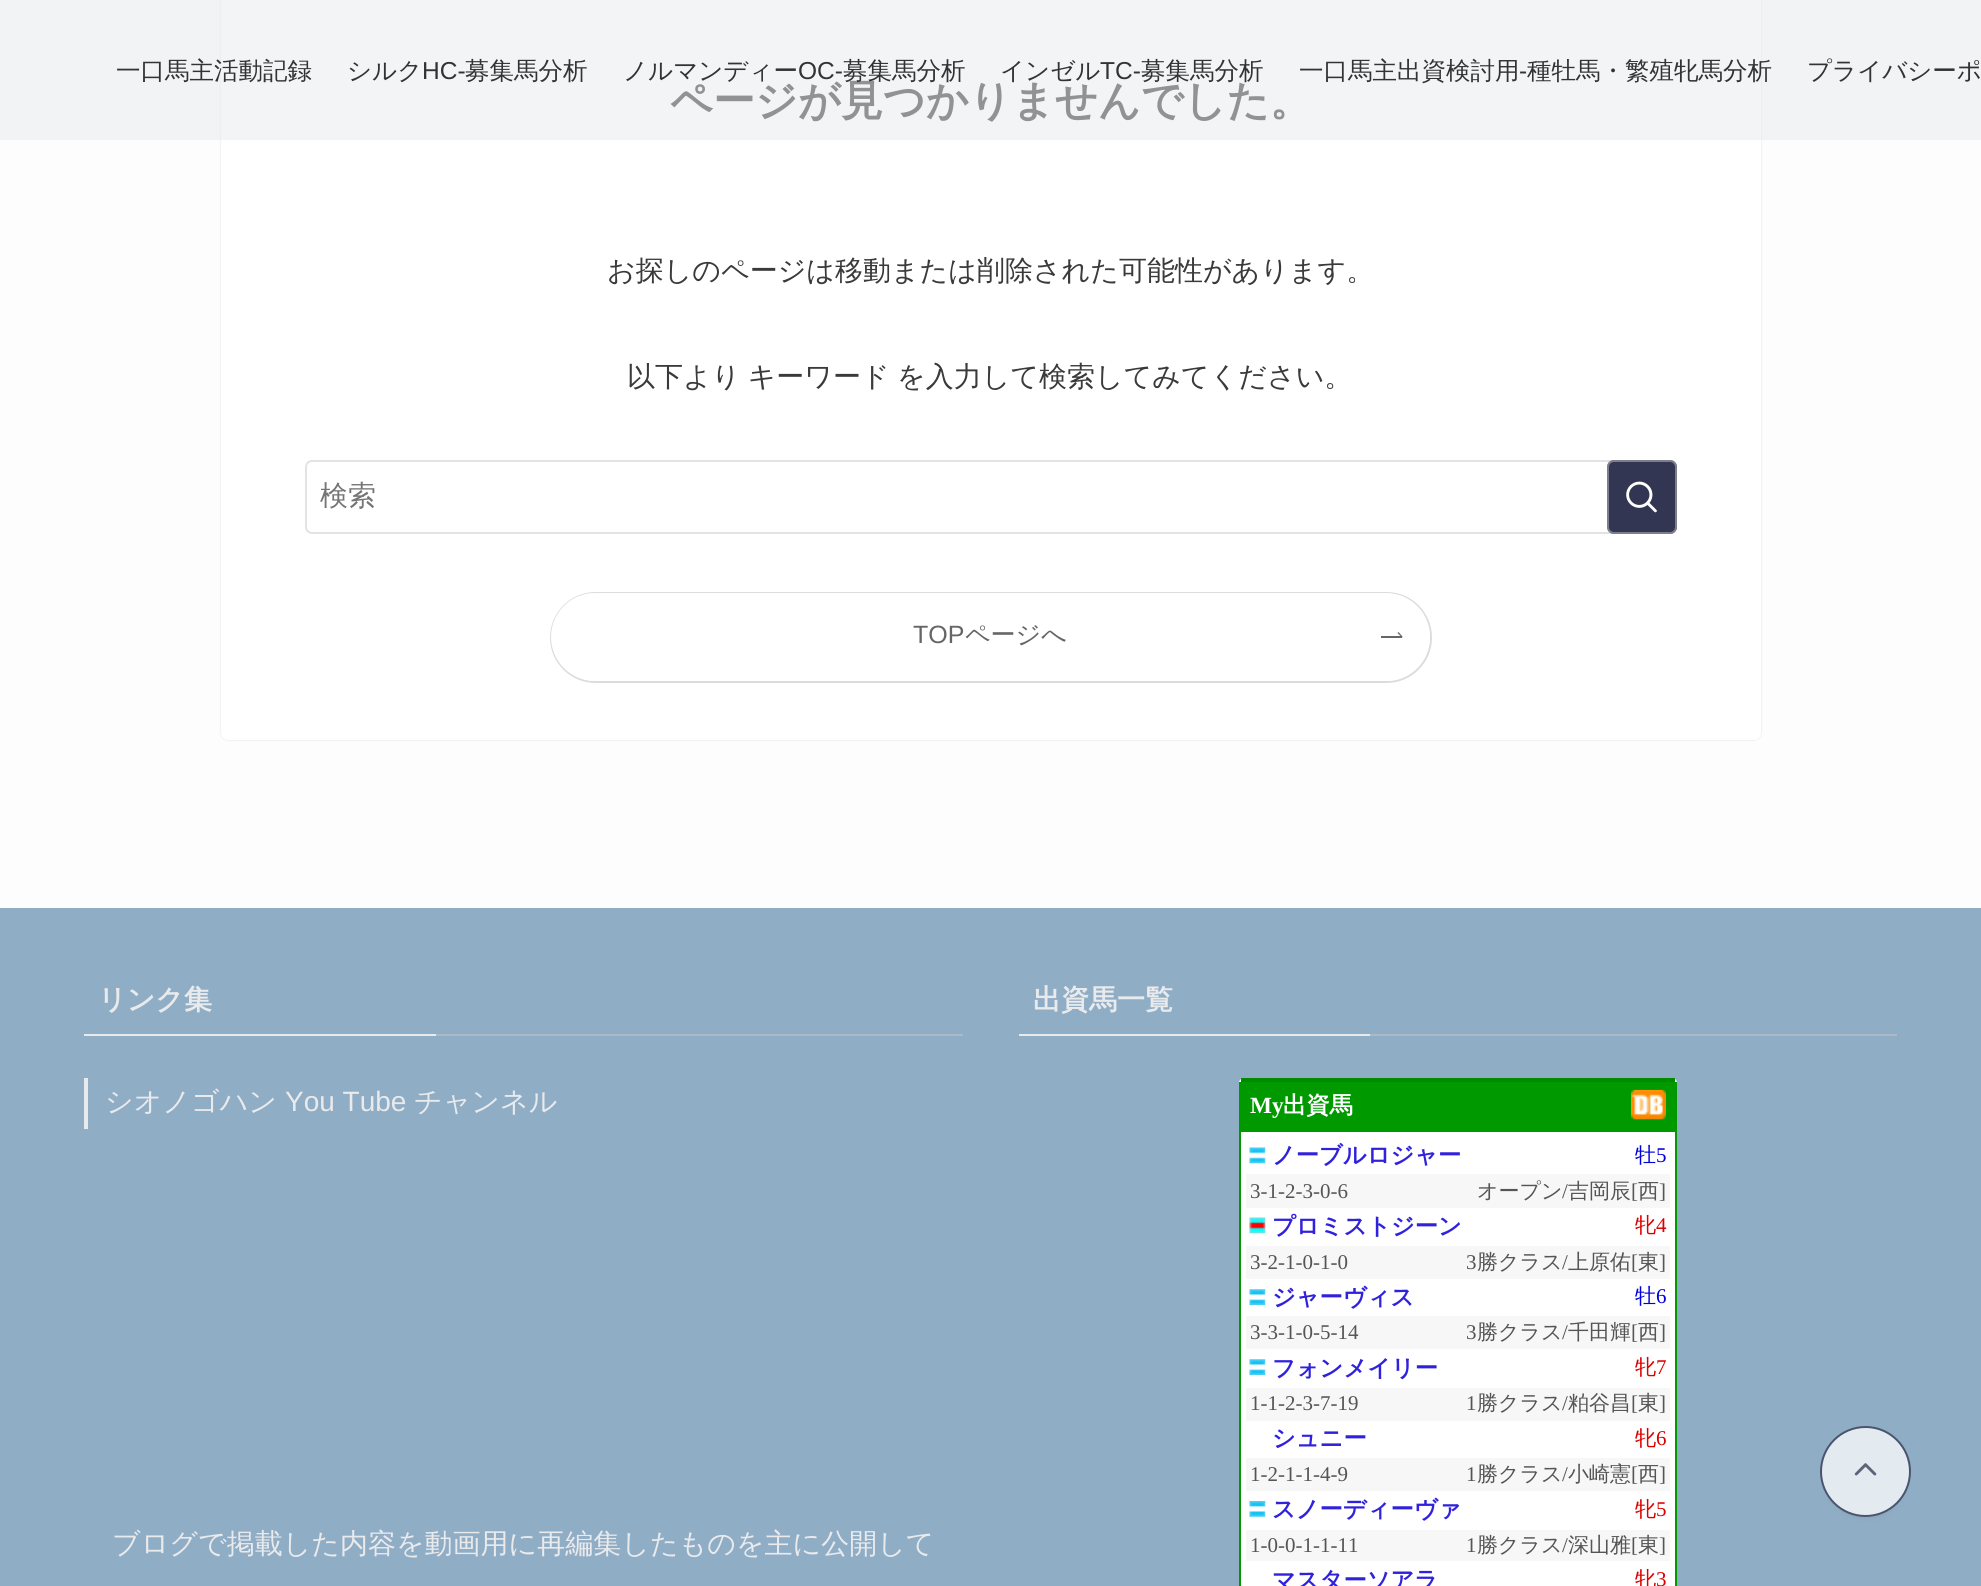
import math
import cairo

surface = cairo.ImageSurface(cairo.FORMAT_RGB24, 1981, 1586)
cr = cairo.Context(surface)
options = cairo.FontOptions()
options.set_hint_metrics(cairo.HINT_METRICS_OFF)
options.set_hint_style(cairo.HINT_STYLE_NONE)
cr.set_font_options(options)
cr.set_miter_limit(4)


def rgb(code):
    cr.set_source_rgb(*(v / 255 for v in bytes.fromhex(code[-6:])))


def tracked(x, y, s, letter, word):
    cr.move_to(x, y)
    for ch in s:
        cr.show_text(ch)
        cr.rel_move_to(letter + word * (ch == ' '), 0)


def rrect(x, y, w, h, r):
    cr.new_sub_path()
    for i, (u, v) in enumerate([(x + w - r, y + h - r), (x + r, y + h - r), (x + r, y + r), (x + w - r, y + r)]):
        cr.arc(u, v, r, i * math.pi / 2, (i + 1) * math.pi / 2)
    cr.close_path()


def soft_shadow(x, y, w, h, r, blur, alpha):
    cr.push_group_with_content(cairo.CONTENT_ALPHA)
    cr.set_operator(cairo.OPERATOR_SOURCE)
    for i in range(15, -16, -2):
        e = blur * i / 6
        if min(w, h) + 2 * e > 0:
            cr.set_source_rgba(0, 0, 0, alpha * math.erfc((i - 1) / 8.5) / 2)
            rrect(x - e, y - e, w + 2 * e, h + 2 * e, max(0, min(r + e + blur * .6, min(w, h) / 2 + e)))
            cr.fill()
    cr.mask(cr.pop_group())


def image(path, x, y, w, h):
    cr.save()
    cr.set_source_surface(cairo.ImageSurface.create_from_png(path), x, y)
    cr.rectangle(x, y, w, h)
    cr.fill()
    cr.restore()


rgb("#fdfdfd")
cr.paint()
rgb("#000000")
soft_shadow(221, -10, 1540, 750, 7, 1, 0.12)
rgb("#ffffff")
rrect(221, -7, 1540, 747, 7)
cr.fill()
rrect(306, 461, 1370, 72, 6)
rgb("#e3e3e3")
cr.stroke()
rgb("#333652")
rrect(1607, 460, 70, 74, 7)
cr.fill()
rrect(1608, 461, 68, 72, 6)
cr.set_source_rgba(0.78, 0.78, 0.78, 0.5)
cr.stroke()
image("img/1.png", 1626, 481, 31, 32)
rrect(551, 593, 880, 89, 44.5)
rgb("#dcdcdc")
cr.stroke()
rgb("#ffffff")
rrect(551, 593, 879, 88, 44)
cr.fill()
rgb("#666666")
cr.new_path()
cr.move_to(1402, 638)
cr.line_to(1381, 638)
cr.line_to(1381, 636)
cr.line_to(1400.5, 636)
cr.line_to(1397.5, 633)
cr.line_to(1398.5, 632)
cr.line_to(1402.5, 636.5)
cr.close_path()
cr.fill()
for x, y, w, h, color in [
    (0, 908, 1981, 678, "#90adc6"),
    (84, 1034, 352, 2, "#e9eaec"),
    (436, 1034, 527, 2, "#acbac7"),
    (84, 1078, 4, 51, "#e9eaec"),
    (1019, 1034, 351, 2, "#e9eaec"),
    (1370, 1034, 527, 2, "#acbac7"),
]:
    rgb(color)
    cr.rectangle(x, y, w, h)
    cr.fill()
rgb("#ffffff")
rrect(1239, 1078, 438, 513, 5)
cr.fill()
for x, y, w, h, color in [
    (1675, 1082, 2, 504, "#009a00"),
    (1239, 1082, 2, 504, "#009a00"),
    (1241, 1082, 434, 50, "#009a00"),
    (1241, 1078, 434, 4, "#008a00"),
]:
    rgb(color)
    cr.rectangle(x, y, w, h)
    cr.fill()
image("img/2.png", 1631, 1089, 35, 31)
image("img/3.png", 1249, 1147, 17, 17)
rgb("#f7f7f7")
cr.rectangle(1246, 1174, 424, 34)
cr.fill()
image("img/4.png", 1249, 1217, 17, 17)
cr.rectangle(1246, 1246, 424, 33)
cr.fill()
image("img/5.png", 1249, 1289, 17, 16)
cr.rectangle(1246, 1316, 424, 33)
cr.fill()
image("img/5.png", 1249, 1359, 17, 16)
cr.rectangle(1246, 1388, 424, 33)
cr.fill()
cr.rectangle(1246, 1458, 424, 33)
cr.fill()
image("img/6.png", 1249, 1501, 17, 16)
cr.rectangle(1246, 1530, 424, 31)
cr.fill()
rgb("#242b32")
soft_shadow(1827, 1440, 77, 77, 38.5, 3.5, 0.1)
rgb("#e3ebf1")
cr.arc(1865.5, 1471.5, 44.5, 0, 2 * math.pi)
cr.fill_preserve()
rgb("#4a546f")
cr.stroke()
image("img/7.png", 1854, 1463, 23, 13)
cr.select_font_face("WenQuanYi Zen Hei", cairo.FONT_SLANT_NORMAL, cairo.FONT_WEIGHT_BOLD)
cr.set_font_size(42)
rgb("#3a3a3a")
cr.move_to(670, 115)
cr.show_text("ページが見つかりませんでした。")
cr.set_source_rgba(0.914, 0.918, 0.925, 0.5)
cr.rectangle(0, 0, 1981, 140)
cr.fill()
cr.select_font_face("WenQuanYi Zen Hei Medium")
cr.set_font_size(24.5)
rgb("#333333")
cr.move_to(1807, 79)
cr.show_text("プライバシーポ")
cr.move_to(1527, 79)
cr.show_text("種牡馬・繁殖牝馬分析")
cr.select_font_face("Liberation Sans")
cr.move_to(1519, 79)
cr.show_text("‐")
cr.select_font_face("WenQuanYi Zen Hei Medium")
cr.move_to(1299, 79)
cr.show_text("一口馬主出資検討用")
cr.move_to(1141, 79)
cr.show_text("募集馬分析")
cr.select_font_face("Liberation Sans")
cr.move_to(1100, 79)
cr.show_text("TC-")
cr.select_font_face("WenQuanYi Zen Hei Medium")
cr.move_to(1000, 79)
cr.show_text("インゼル")
cr.move_to(843, 79)
cr.show_text("募集馬分析")
cr.select_font_face("Liberation Sans")
cr.move_to(798, 79)
cr.show_text("OC-")
cr.select_font_face("WenQuanYi Zen Hei Medium")
cr.move_to(623, 79)
cr.show_text("ノルマンディー")
cr.move_to(465, 79)
cr.show_text("募集馬分析")
cr.select_font_face("Liberation Sans")
cr.move_to(422, 79)
cr.show_text("HC-")
cr.select_font_face("WenQuanYi Zen Hei Medium")
cr.move_to(347, 79)
cr.show_text("シルク")
cr.move_to(116, 79)
cr.show_text("一口馬主活動記録")
cr.set_font_size(28)
rgb("#3a3a3a")
cr.move_to(607, 280)
cr.show_text("お探しのページは移動または削除された可能性があります。")
tracked(627, 386, "以下より キーワード を入力して検索してみてください。", 0, -1)
rgb("#757575")
cr.move_to(320, 505)
cr.show_text("検索")
cr.select_font_face("Liberation Sans")
cr.set_font_size(25)
rgb("#666666")
cr.move_to(913, 643)
cr.show_text("TOP")
cr.select_font_face("WenQuanYi Zen Hei Medium")
cr.move_to(965, 643)
cr.show_text("ページへ")
cr.select_font_face("WenQuanYi Zen Hei", cairo.FONT_SLANT_NORMAL, cairo.FONT_WEIGHT_BOLD)
cr.set_font_size(28)
rgb("#e9eaec")
cr.move_to(98, 1009)
cr.show_text("リンク集")
cr.select_font_face("WenQuanYi Zen Hei Medium")
cr.move_to(105, 1111)
cr.show_text("シオノゴハン")
cr.select_font_face("Liberation Sans")
cr.move_to(285, 1111)
cr.show_text("You Tube")
cr.select_font_face("WenQuanYi Zen Hei Medium")
cr.move_to(414, 1111)
cr.show_text("チャンネル")
cr.move_to(112, 1553)
cr.show_text("ブログで掲載した内容を動画用に再編集したものを主に公開して")
cr.select_font_face("WenQuanYi Zen Hei", cairo.FONT_SLANT_NORMAL, cairo.FONT_WEIGHT_BOLD)
cr.move_to(1033, 1009)
cr.show_text("出資馬一覧")
cr.select_font_face("Liberation Serif", cairo.FONT_SLANT_NORMAL, cairo.FONT_WEIGHT_BOLD)
cr.set_font_size(23.25)
rgb("#ffffff")
cr.move_to(1250, 1113)
cr.show_text("My")
cr.select_font_face("WenQuanYi Zen Hei", cairo.FONT_SLANT_NORMAL, cairo.FONT_WEIGHT_BOLD)
cr.move_to(1283, 1113)
cr.show_text("出資馬")
rgb("#3021dd")
cr.move_to(1272, 1163)
cr.show_text("ノーブルロジャー")
cr.select_font_face("WenQuanYi Zen Hei Medium")
cr.set_font_size(21)
rgb("#0000dd")
cr.move_to(1635, 1162)
cr.show_text("牡")
cr.select_font_face("Liberation Serif")
cr.move_to(1656, 1162)
cr.show_text("5")
rgb("#555555")
cr.move_to(1250, 1198)
cr.show_text("3-1-2-3-0-6")
cr.select_font_face("WenQuanYi Zen Hei Medium")
cr.move_to(1477, 1198)
cr.show_text("オープン")
cr.select_font_face("Liberation Serif")
cr.move_to(1562, 1198)
cr.show_text("/")
cr.select_font_face("WenQuanYi Zen Hei Medium")
cr.move_to(1568, 1198)
cr.show_text("吉岡辰")
cr.select_font_face("Liberation Serif")
cr.move_to(1631, 1198)
cr.show_text("[")
cr.select_font_face("WenQuanYi Zen Hei Medium")
cr.move_to(1638, 1198)
cr.show_text("西")
cr.select_font_face("Liberation Serif")
cr.move_to(1659, 1198)
cr.show_text("]")
cr.select_font_face("WenQuanYi Zen Hei", cairo.FONT_SLANT_NORMAL, cairo.FONT_WEIGHT_BOLD)
cr.set_font_size(23.25)
rgb("#3021dd")
cr.move_to(1272, 1234)
cr.show_text("プロミストジーン")
cr.select_font_face("WenQuanYi Zen Hei Medium")
cr.set_font_size(21)
rgb("#dd0000")
cr.move_to(1635, 1232)
cr.show_text("牝")
cr.select_font_face("Liberation Serif")
cr.move_to(1656, 1232)
cr.show_text("4")
rgb("#555555")
cr.move_to(1250, 1269)
cr.show_text("3-2-1-0-1-0")
cr.move_to(1466, 1269)
cr.show_text("3")
cr.select_font_face("WenQuanYi Zen Hei Medium")
cr.move_to(1477, 1269)
cr.show_text("勝クラス")
cr.select_font_face("Liberation Serif")
cr.move_to(1562, 1269)
cr.show_text("/")
cr.select_font_face("WenQuanYi Zen Hei Medium")
cr.move_to(1568, 1269)
cr.show_text("上原佑")
cr.select_font_face("Liberation Serif")
cr.move_to(1631, 1269)
cr.show_text("[")
cr.select_font_face("WenQuanYi Zen Hei Medium")
cr.move_to(1638, 1269)
cr.show_text("東")
cr.select_font_face("Liberation Serif")
cr.move_to(1659, 1269)
cr.show_text("]")
cr.select_font_face("WenQuanYi Zen Hei", cairo.FONT_SLANT_NORMAL, cairo.FONT_WEIGHT_BOLD)
cr.set_font_size(23.25)
rgb("#3021dd")
cr.move_to(1272, 1305)
cr.show_text("ジャーヴィス")
cr.select_font_face("WenQuanYi Zen Hei Medium")
cr.set_font_size(21)
rgb("#0000dd")
cr.move_to(1635, 1303)
cr.show_text("牡")
cr.select_font_face("Liberation Serif")
cr.move_to(1656, 1303)
cr.show_text("6")
rgb("#555555")
cr.move_to(1250, 1339)
cr.show_text("3-3-1-0-5-14")
cr.move_to(1466, 1339)
cr.show_text("3")
cr.select_font_face("WenQuanYi Zen Hei Medium")
cr.move_to(1477, 1339)
cr.show_text("勝クラス")
cr.select_font_face("Liberation Serif")
cr.move_to(1562, 1339)
cr.show_text("/")
cr.select_font_face("WenQuanYi Zen Hei Medium")
cr.move_to(1568, 1339)
cr.show_text("千田輝")
cr.select_font_face("Liberation Serif")
cr.move_to(1631, 1339)
cr.show_text("[")
cr.select_font_face("WenQuanYi Zen Hei Medium")
cr.move_to(1638, 1339)
cr.show_text("西")
cr.select_font_face("Liberation Serif")
cr.move_to(1659, 1339)
cr.show_text("]")
cr.select_font_face("WenQuanYi Zen Hei", cairo.FONT_SLANT_NORMAL, cairo.FONT_WEIGHT_BOLD)
cr.set_font_size(23.25)
rgb("#3021dd")
cr.move_to(1272, 1376)
cr.show_text("フォンメイリー")
cr.select_font_face("WenQuanYi Zen Hei Medium")
cr.set_font_size(21)
rgb("#dd0000")
cr.move_to(1635, 1374)
cr.show_text("牝")
cr.select_font_face("Liberation Serif")
cr.move_to(1656, 1374)
cr.show_text("7")
rgb("#555555")
cr.move_to(1250, 1410)
cr.show_text("1-1-2-3-7-19")
cr.move_to(1466, 1410)
cr.show_text("1")
cr.select_font_face("WenQuanYi Zen Hei Medium")
cr.move_to(1477, 1410)
cr.show_text("勝クラス")
cr.select_font_face("Liberation Serif")
cr.move_to(1562, 1410)
cr.show_text("/")
cr.select_font_face("WenQuanYi Zen Hei Medium")
cr.move_to(1568, 1410)
cr.show_text("粕谷昌")
cr.select_font_face("Liberation Serif")
cr.move_to(1631, 1410)
cr.show_text("[")
cr.select_font_face("WenQuanYi Zen Hei Medium")
cr.move_to(1638, 1410)
cr.show_text("東")
cr.select_font_face("Liberation Serif")
cr.move_to(1659, 1410)
cr.show_text("]")
cr.select_font_face("WenQuanYi Zen Hei", cairo.FONT_SLANT_NORMAL, cairo.FONT_WEIGHT_BOLD)
cr.set_font_size(23.25)
rgb("#3021dd")
cr.move_to(1272, 1446)
cr.show_text("シュニー")
cr.select_font_face("WenQuanYi Zen Hei Medium")
cr.set_font_size(21)
rgb("#dd0000")
cr.move_to(1635, 1445)
cr.show_text("牝")
cr.select_font_face("Liberation Serif")
cr.move_to(1656, 1445)
cr.show_text("6")
rgb("#555555")
cr.move_to(1250, 1481)
cr.show_text("1-2-1-1-4-9")
cr.move_to(1466, 1481)
cr.show_text("1")
cr.select_font_face("WenQuanYi Zen Hei Medium")
cr.move_to(1477, 1481)
cr.show_text("勝クラス")
cr.select_font_face("Liberation Serif")
cr.move_to(1562, 1481)
cr.show_text("/")
cr.select_font_face("WenQuanYi Zen Hei Medium")
cr.move_to(1568, 1481)
cr.show_text("小崎憲")
cr.select_font_face("Liberation Serif")
cr.move_to(1631, 1481)
cr.show_text("[")
cr.select_font_face("WenQuanYi Zen Hei Medium")
cr.move_to(1638, 1481)
cr.show_text("西")
cr.select_font_face("Liberation Serif")
cr.move_to(1659, 1481)
cr.show_text("]")
cr.select_font_face("WenQuanYi Zen Hei", cairo.FONT_SLANT_NORMAL, cairo.FONT_WEIGHT_BOLD)
cr.set_font_size(23.25)
rgb("#3021dd")
cr.move_to(1272, 1517)
cr.show_text("スノーディーヴァ")
cr.select_font_face("WenQuanYi Zen Hei Medium")
cr.set_font_size(21)
rgb("#dd0000")
cr.move_to(1635, 1516)
cr.show_text("牝")
cr.select_font_face("Liberation Serif")
cr.move_to(1656, 1516)
cr.show_text("5")
rgb("#555555")
cr.move_to(1250, 1552)
cr.show_text("1-0-0-1-1-11")
cr.move_to(1466, 1552)
cr.show_text("1")
cr.select_font_face("WenQuanYi Zen Hei Medium")
cr.move_to(1477, 1552)
cr.show_text("勝クラス")
cr.select_font_face("Liberation Serif")
cr.move_to(1562, 1552)
cr.show_text("/")
cr.select_font_face("WenQuanYi Zen Hei Medium")
cr.move_to(1568, 1552)
cr.show_text("深山雅")
cr.select_font_face("Liberation Serif")
cr.move_to(1631, 1552)
cr.show_text("[")
cr.select_font_face("WenQuanYi Zen Hei Medium")
cr.move_to(1638, 1552)
cr.show_text("東")
cr.select_font_face("Liberation Serif")
cr.move_to(1659, 1552)
cr.show_text("]")
cr.select_font_face("WenQuanYi Zen Hei", cairo.FONT_SLANT_NORMAL, cairo.FONT_WEIGHT_BOLD)
cr.set_font_size(23.25)
rgb("#3021dd")
cr.move_to(1272, 1588)
cr.show_text("マスターソアラ")
cr.select_font_face("WenQuanYi Zen Hei Medium")
cr.set_font_size(21)
rgb("#dd0000")
cr.move_to(1635, 1586)
cr.show_text("牝")
cr.select_font_face("Liberation Serif")
cr.move_to(1656, 1586)
cr.show_text("3")
surface.write_to_png("page.png")
